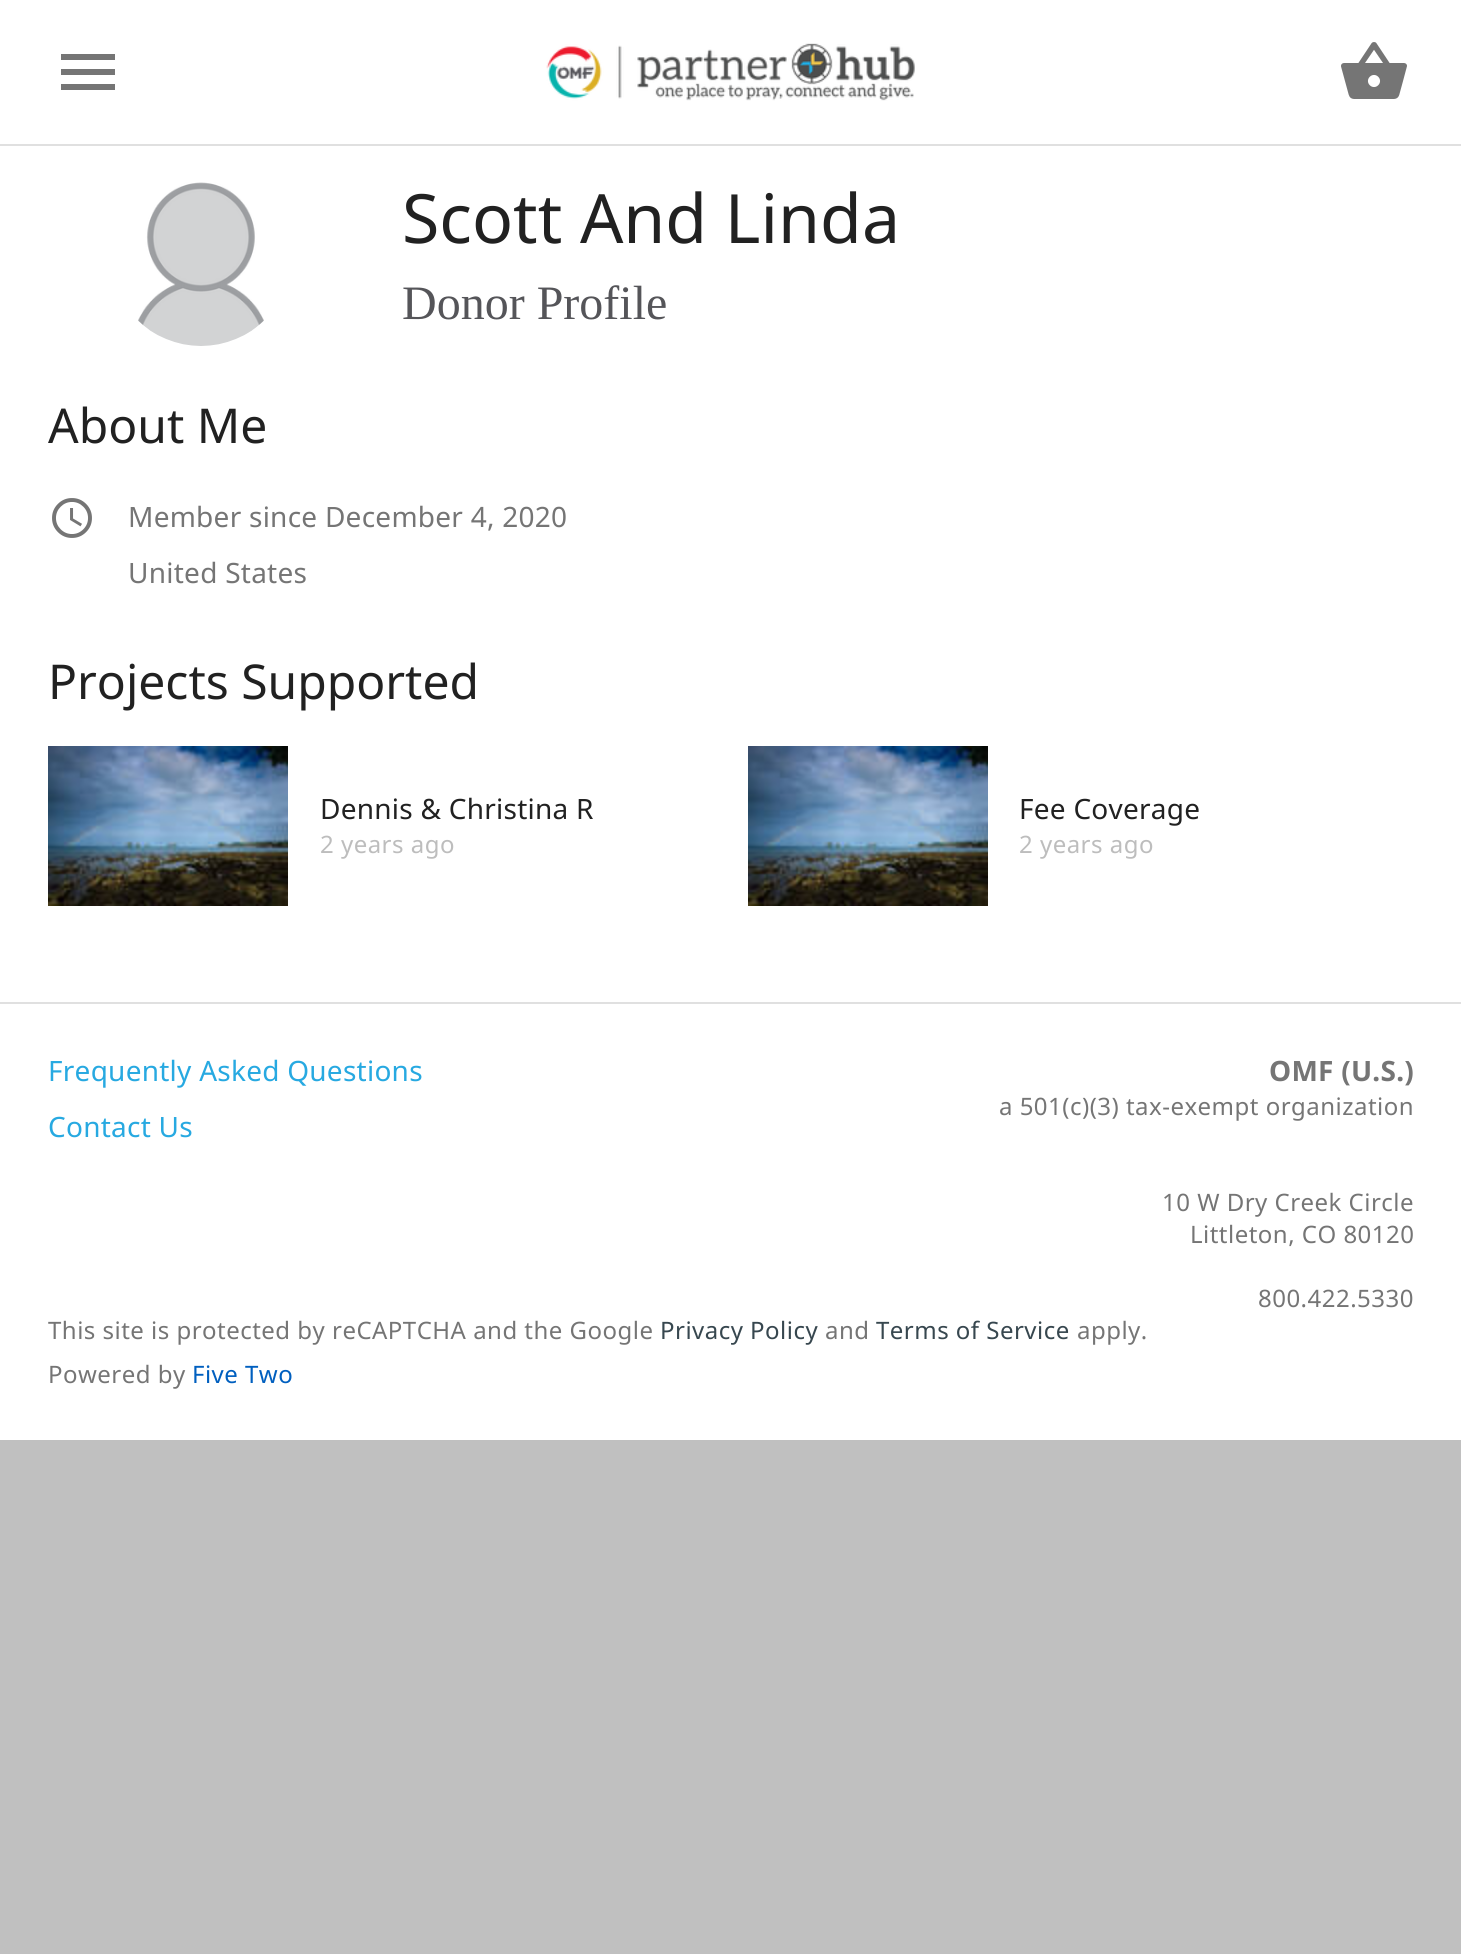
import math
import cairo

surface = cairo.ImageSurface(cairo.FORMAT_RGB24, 1461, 1954)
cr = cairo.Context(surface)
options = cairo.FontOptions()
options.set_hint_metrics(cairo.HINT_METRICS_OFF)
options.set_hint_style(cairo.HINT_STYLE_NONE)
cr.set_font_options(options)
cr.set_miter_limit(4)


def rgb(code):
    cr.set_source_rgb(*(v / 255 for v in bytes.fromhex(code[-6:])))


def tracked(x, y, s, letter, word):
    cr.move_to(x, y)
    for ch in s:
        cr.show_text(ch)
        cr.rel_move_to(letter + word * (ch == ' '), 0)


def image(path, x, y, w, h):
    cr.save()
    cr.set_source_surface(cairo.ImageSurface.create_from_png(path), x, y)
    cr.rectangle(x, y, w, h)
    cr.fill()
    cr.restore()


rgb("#c0c0c0")
cr.paint()
rgb("#ffffff")
cr.rectangle(0, 0, 1461, 1440)
cr.fill()
rgb("#e0e0e0")
cr.rectangle(0, 144, 1461, 2)
cr.fill()
image("img/1.png", 546, 43, 369, 58)
image("img/2.png", 1341, 42, 66, 57)
rgb("#757575")
cr.new_path()
cr.move_to(61, 54)
cr.line_to(115, 54)
cr.line_to(115, 60)
cr.line_to(61, 60)
cr.close_path()
cr.move_to(61, 75)
cr.line_to(61, 69)
cr.line_to(115, 69)
cr.line_to(115, 75)
cr.close_path()
cr.move_to(61, 90)
cr.line_to(61, 84)
cr.line_to(115, 84)
cr.line_to(115, 90)
cr.close_path()
cr.fill()
image("img/3.png", 138, 182, 126, 164)
image("img/4.png", 52, 498, 40, 40)
image("img/5.png", 48, 746, 240, 160)
image("img/5.png", 748, 746, 240, 160)
rgb("#e0e0e0")
cr.rectangle(0, 1002, 1461, 2)
cr.fill()
cr.select_font_face("Noto Sans")
cr.set_font_size(68)
rgb("#212121")
cr.move_to(402, 243)
cr.show_text("Scott And Linda")
cr.select_font_face("Liberation Serif")
cr.set_font_size(48)
rgb("#555559")
cr.move_to(402, 319)
cr.show_text("Donor Profile")
cr.select_font_face("Noto Sans")
rgb("#212121")
cr.move_to(48, 443)
cr.show_text("About Me")
cr.set_font_size(28)
rgb("#757575")
tracked(128, 527, "Member since December 4, 2020", 0.25, 0)
tracked(128, 583, "United States", 0.25, 0)
cr.set_font_size(48)
rgb("#212121")
cr.move_to(48, 699)
cr.show_text("Projects Supported")
cr.set_font_size(28)
tracked(320, 819, "Dennis & Christina R", 0.25, 0)
cr.set_font_size(24)
rgb("#bdbdbd")
tracked(320, 853, "2 years ago", 0.48, 0)
cr.set_font_size(28)
rgb("#212121")
tracked(1019, 819, "Fee Coverage", 0.25, 0)
cr.set_font_size(24)
rgb("#bdbdbd")
tracked(1019, 853, "2 years ago", 0.48, 0)
cr.set_font_size(28)
rgb("#27a9e1")
tracked(48, 1081, "Frequently Asked Questions", 0.25, 0)
tracked(48, 1137, "Contact Us", 0.25, 0)
cr.select_font_face("Noto Sans", cairo.FONT_SLANT_NORMAL, cairo.FONT_WEIGHT_BOLD)
rgb("#757575")
tracked(1269, 1081, "OMF (U.S.)", 0.25, 0)
cr.select_font_face("Noto Sans")
cr.set_font_size(24)
for x, y, s in [
    (999, 1115, "a 501(c)(3) tax-exempt organization"),
    (1162, 1211, "10 W Dry Creek Circle"),
    (1190, 1243, "Littleton, CO 80120"),
    (1258, 1307, "800.422.5330"),
    (48, 1339, "This site is protected by reCAPTCHA and the Google"),
]:
    tracked(x, y, s, 0.48, 0)
rgb("#37474f")
tracked(660, 1339, "Privacy Policy", 0.48, 0)
rgb("#757575")
tracked(825, 1339, "and", 0.48, 0)
rgb("#37474f")
tracked(876, 1339, "Terms of Service", 0.48, 0)
rgb("#757575")
tracked(1077, 1339, "apply.", 0.48, 0)
tracked(48, 1383, "Powered by", 0.48, 0)
rgb("#005fbf")
tracked(192, 1383, "Five Two", 0.48, 0)
surface.write_to_png("page.png")
